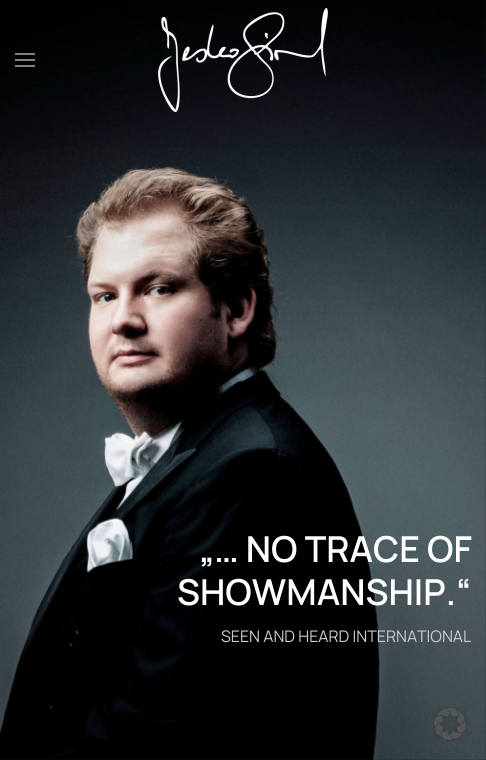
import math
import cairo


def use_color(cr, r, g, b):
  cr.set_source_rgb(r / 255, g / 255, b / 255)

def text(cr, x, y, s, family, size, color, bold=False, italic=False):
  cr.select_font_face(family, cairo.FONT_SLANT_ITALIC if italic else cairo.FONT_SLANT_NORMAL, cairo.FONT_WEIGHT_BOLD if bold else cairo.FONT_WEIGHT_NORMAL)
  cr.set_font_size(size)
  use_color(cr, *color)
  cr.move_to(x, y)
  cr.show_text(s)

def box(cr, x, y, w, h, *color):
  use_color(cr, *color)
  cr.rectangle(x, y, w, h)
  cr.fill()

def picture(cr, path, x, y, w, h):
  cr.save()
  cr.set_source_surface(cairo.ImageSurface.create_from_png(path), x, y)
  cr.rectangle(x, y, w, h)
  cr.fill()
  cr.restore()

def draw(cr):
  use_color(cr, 22, 32, 38)
  cr.paint()
  picture(cr, "img_02.png", 0, 0, 486, 760)
  box(cr, 15, 53, 20, 2, 129, 129, 129)
  box(cr, 15, 59, 20, 2, 129, 129, 129)
  cr.set_source_rgba(1, 1, 1, 0.5)
  cr.rectangle(15, 65, 20, 2)
  cr.fill()
  picture(cr, "img_01.png", 158, 8, 170, 104)
  picture(cr, "img_03.png", 433, 706, 35, 36)
  text(cr, 199, 562, "„… NO TRACE OF", "Manrope ExtraLight", 35.75, (255, 255, 255))
  text(cr, 177, 605, "SHOWMANSHIP.“", "Manrope ExtraLight", 35.75, (255, 255, 255))
  text(cr, 221, 642, "SEEN AND HEARD INTERNATIONAL", "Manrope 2 ExtraLight", 16, (202, 203, 204))


surface = cairo.ImageSurface(cairo.FORMAT_RGB24, 486, 760)
cr = cairo.Context(surface)
options = cairo.FontOptions()
options.set_hint_metrics(cairo.HINT_METRICS_OFF)
options.set_hint_style(cairo.HINT_STYLE_NONE)
cr.set_font_options(options)
cr.set_miter_limit(4)
draw(cr)
surface.write_to_png("out.png")
